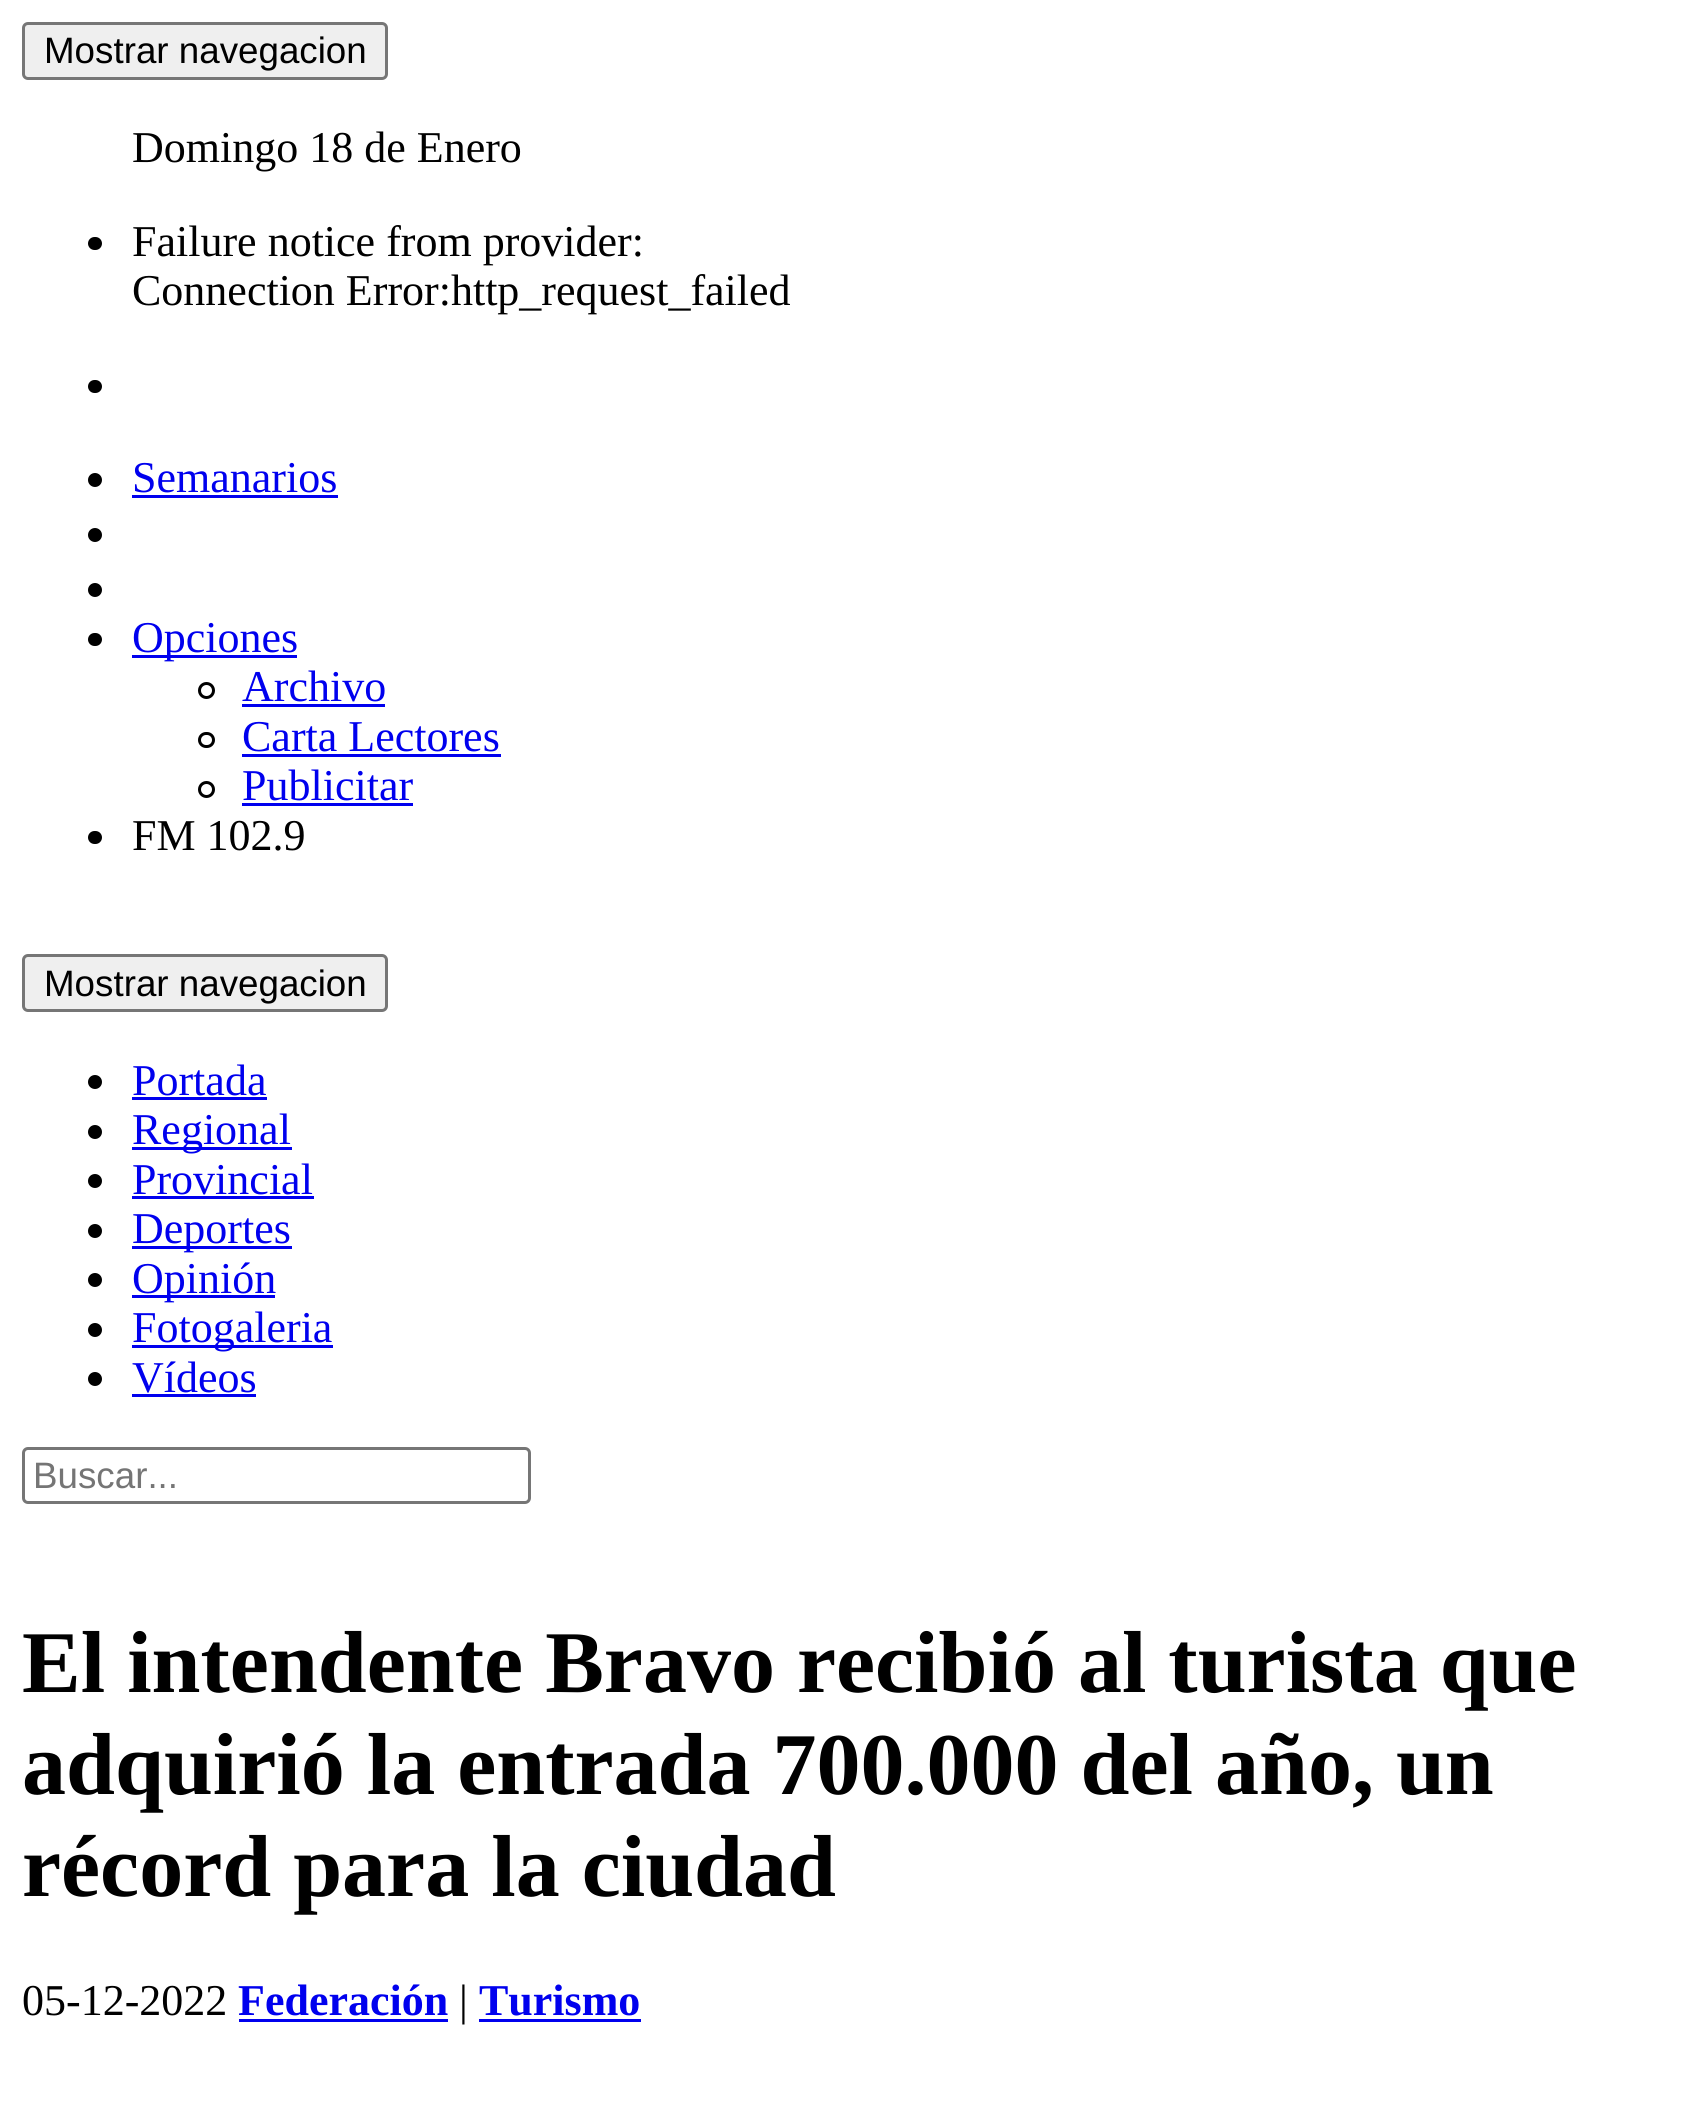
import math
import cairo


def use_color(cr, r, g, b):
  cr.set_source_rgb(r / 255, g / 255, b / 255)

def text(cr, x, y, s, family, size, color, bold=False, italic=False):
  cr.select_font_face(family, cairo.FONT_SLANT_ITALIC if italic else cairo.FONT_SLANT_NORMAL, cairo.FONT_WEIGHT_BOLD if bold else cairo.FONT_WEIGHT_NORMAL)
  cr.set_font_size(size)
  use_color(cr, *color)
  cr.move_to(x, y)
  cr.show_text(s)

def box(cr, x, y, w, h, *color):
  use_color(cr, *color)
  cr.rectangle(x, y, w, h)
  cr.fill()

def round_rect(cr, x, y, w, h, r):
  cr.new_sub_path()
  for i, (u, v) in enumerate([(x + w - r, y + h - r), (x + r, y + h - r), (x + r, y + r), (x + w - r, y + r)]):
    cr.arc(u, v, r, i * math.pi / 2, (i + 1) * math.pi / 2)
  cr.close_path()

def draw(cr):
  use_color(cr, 255, 255, 255)
  cr.paint()
  use_color(cr, 239, 239, 239)
  round_rect(cr, 23.5, 23.5, 363, 55, 4.5)
  cr.fill_preserve()
  use_color(cr, 118, 118, 118)
  cr.set_line_width(3)
  cr.stroke()
  use_color(cr, 0, 0, 0)
  round_rect(cr, 88, 237, 14, 13, 6.5)
  cr.fill()
  round_rect(cr, 88, 380, 14, 13, 6.5)
  cr.fill()
  cr.arc(95, 480, 7, 0, 2 * math.pi)
  cr.fill()
  box(cr, 132, 495, 206, 3, 0, 0, 238)
  use_color(cr, 0, 0, 0)
  cr.arc(95, 535, 7, 0, 2 * math.pi)
  cr.fill()
  cr.arc(95, 590, 7, 0, 2 * math.pi)
  cr.fill()
  round_rect(cr, 88, 633, 14, 13, 6.5)
  cr.fill()
  box(cr, 132, 655, 165, 3, 0, 0, 238)
  cr.arc(206.5, 690.5, 7, 0, 2 * math.pi)
  use_color(cr, 0, 0, 0)
  cr.stroke()
  box(cr, 242, 704, 143, 3, 0, 0, 238)
  round_rect(cr, 199.5, 733.5, 14, 13, 6.5)
  use_color(cr, 0, 0, 0)
  cr.stroke()
  box(cr, 242, 754, 259, 3, 0, 0, 238)
  cr.arc(206.5, 789.5, 7, 0, 2 * math.pi)
  use_color(cr, 0, 0, 0)
  cr.stroke()
  box(cr, 242, 803, 171, 3, 0, 0, 238)
  use_color(cr, 0, 0, 0)
  round_rect(cr, 88, 831, 14, 13, 6.5)
  cr.fill()
  use_color(cr, 239, 239, 239)
  round_rect(cr, 23.5, 955.5, 363, 55, 4.5)
  cr.fill_preserve()
  use_color(cr, 118, 118, 118)
  cr.stroke()
  use_color(cr, 0, 0, 0)
  cr.arc(95, 1082, 7, 0, 2 * math.pi)
  cr.fill()
  box(cr, 132, 1097, 135, 3, 0, 0, 238)
  use_color(cr, 0, 0, 0)
  cr.arc(95, 1132, 7, 0, 2 * math.pi)
  cr.fill()
  box(cr, 132, 1147, 160, 3, 0, 0, 238)
  use_color(cr, 0, 0, 0)
  cr.arc(95, 1181, 7, 0, 2 * math.pi)
  cr.fill()
  box(cr, 132, 1196, 182, 3, 0, 0, 238)
  use_color(cr, 0, 0, 0)
  cr.arc(95, 1231, 7, 0, 2 * math.pi)
  cr.fill()
  box(cr, 132, 1246, 160, 3, 0, 0, 238)
  use_color(cr, 0, 0, 0)
  cr.arc(95, 1280, 7, 0, 2 * math.pi)
  cr.fill()
  box(cr, 132, 1295, 143, 3, 0, 0, 238)
  use_color(cr, 0, 0, 0)
  cr.arc(95, 1330, 7, 0, 2 * math.pi)
  cr.fill()
  box(cr, 132, 1345, 201, 3, 0, 0, 238)
  use_color(cr, 0, 0, 0)
  cr.arc(95, 1379, 7, 0, 2 * math.pi)
  cr.fill()
  box(cr, 132, 1394, 124, 3, 0, 0, 238)
  round_rect(cr, 23.5, 1448.5, 506, 54, 4.5)
  use_color(cr, 118, 118, 118)
  cr.stroke()
  box(cr, 239, 2019, 209, 3, 0, 0, 238)
  box(cr, 479, 2019, 162, 3, 0, 0, 238)
  text(cr, 44, 63, "Mostrar navegacion", "Liberation Sans", 36.75, (0, 0, 0))
  text(cr, 132, 162, "Domingo 18 de Enero", "Liberation Serif", 44, (0, 0, 0))
  text(cr, 132, 256, "Failure notice from provider:", "Liberation Serif", 44, (0, 0, 0))
  text(cr, 132, 305, "Connection Error:http_request_failed", "Liberation Serif", 44, (0, 0, 0))
  text(cr, 132, 492, "Semanarios", "Liberation Serif", 44, (0, 0, 238))
  text(cr, 132, 652, "Opciones", "Liberation Serif", 44, (0, 0, 238))
  text(cr, 242, 701, "Archivo", "Liberation Serif", 44, (0, 0, 238))
  text(cr, 242, 751, "Carta Lectores", "Liberation Serif", 44, (0, 0, 238))
  text(cr, 242, 800, "Publicitar", "Liberation Serif", 44, (0, 0, 238))
  text(cr, 132, 850, "FM 102.9", "Liberation Serif", 44, (0, 0, 0))
  text(cr, 44, 996, "Mostrar navegacion", "Liberation Sans", 36.75, (0, 0, 0))
  text(cr, 132, 1095, "Portada", "Liberation Serif", 44, (0, 0, 238))
  text(cr, 132, 1144, "Regional", "Liberation Serif", 44, (0, 0, 238))
  text(cr, 132, 1194, "Provincial", "Liberation Serif", 44, (0, 0, 238))
  text(cr, 132, 1243, "Deportes", "Liberation Serif", 44, (0, 0, 238))
  text(cr, 132, 1293, "Opinión", "Liberation Serif", 44, (0, 0, 238))
  text(cr, 132, 1342, "Fotogaleria", "Liberation Serif", 44, (0, 0, 238))
  text(cr, 132, 1392, "Vídeos", "Liberation Serif", 44, (0, 0, 238))
  text(cr, 33, 1488, "Buscar...", "Liberation Sans", 36.75, (117, 117, 117))
  text(cr, 22, 1692, "El intendente Bravo recibió al turista que", "Liberation Serif", 88, (0, 0, 0), bold=True)
  text(cr, 22, 1794, "adquirió la entrada 700.000 del año, un", "Liberation Serif", 88, (0, 0, 0), bold=True)
  text(cr, 22, 1896, "récord para la ciudad", "Liberation Serif", 88, (0, 0, 0), bold=True)
  text(cr, 22, 2015, "05-12-2022", "Liberation Serif", 44, (0, 0, 0))
  text(cr, 238, 2015, "Federación", "Liberation Serif", 44, (0, 0, 238), bold=True)
  text(cr, 459, 2015, "|", "Liberation Serif", 44, (0, 0, 0))
  text(cr, 479, 2015, "Turismo", "Liberation Serif", 44, (0, 0, 238), bold=True)


surface = cairo.ImageSurface(cairo.FORMAT_RGB24, 1699, 2109)
cr = cairo.Context(surface)
options = cairo.FontOptions()
options.set_hint_metrics(cairo.HINT_METRICS_OFF)
options.set_hint_style(cairo.HINT_STYLE_NONE)
cr.set_font_options(options)
cr.set_miter_limit(4)
draw(cr)
surface.write_to_png("out.png")
